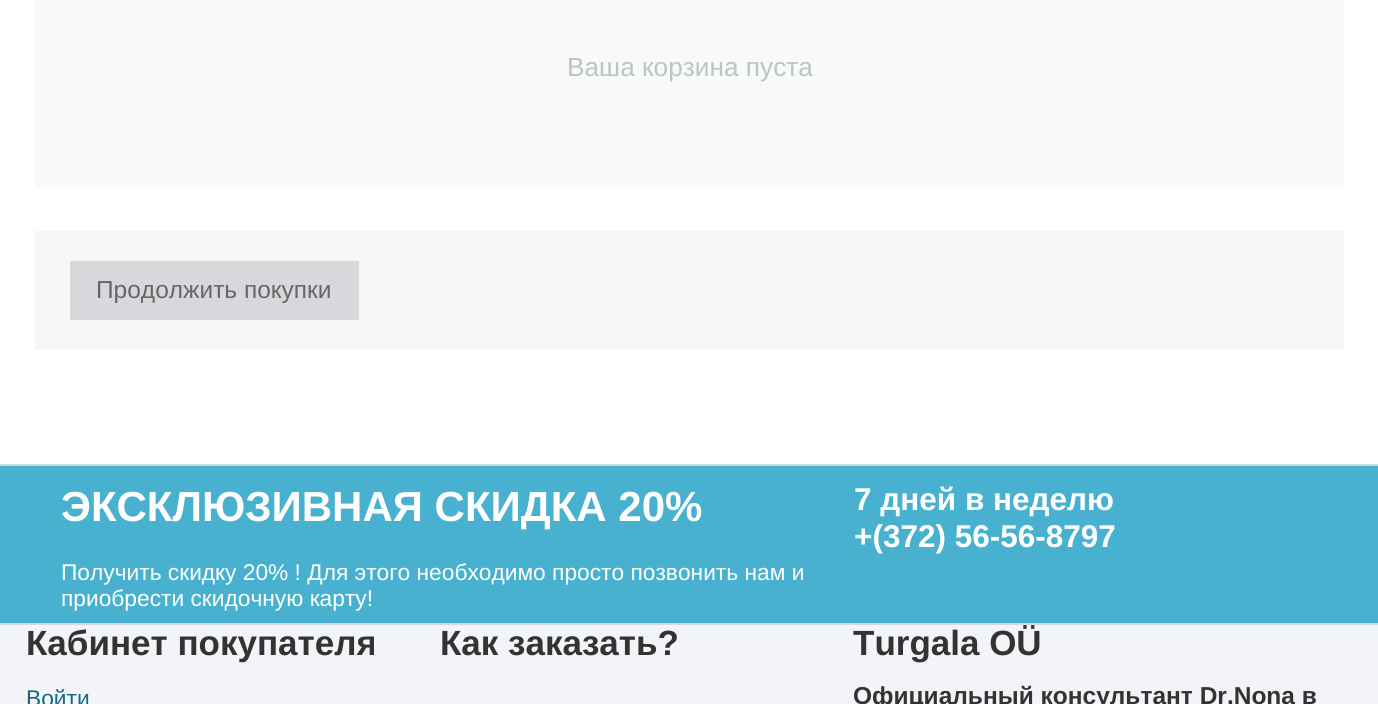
import math
import cairo


def use_color(cr, r, g, b):
  cr.set_source_rgb(r / 255, g / 255, b / 255)

def text(cr, x, y, s, family, size, color, bold=False, italic=False):
  cr.select_font_face(family, cairo.FONT_SLANT_ITALIC if italic else cairo.FONT_SLANT_NORMAL, cairo.FONT_WEIGHT_BOLD if bold else cairo.FONT_WEIGHT_NORMAL)
  cr.set_font_size(size)
  use_color(cr, *color)
  cr.move_to(x, y)
  cr.show_text(s)

def box(cr, x, y, w, h, *color):
  use_color(cr, *color)
  cr.rectangle(x, y, w, h)
  cr.fill()

def draw(cr):
  use_color(cr, 255, 255, 255)
  cr.paint()
  box(cr, 35, 0, 1309, 187, 248, 249, 249)
  box(cr, 35, 231, 1309, 119, 246, 246, 246)
  box(cr, 70, 261, 289, 59, 215, 216, 219)
  box(cr, 0, 625, 1378, 79, 242, 244, 248)
  box(cr, 0, 466, 1378, 157, 72, 177, 207)
  box(cr, 0, 464, 1378, 2, 209, 216, 230)
  box(cr, 0, 623, 1378, 2, 209, 216, 230)
  text(cr, 567, 76, "Ваша корзина пуста", "Liberation Sans", 26.25, (189, 195, 199))
  text(cr, 96, 298, "Продолжить покупки", "Liberation Sans", 24.5, (102, 102, 102))
  text(cr, 61, 521, "ЭКСКЛЮЗИВНАЯ СКИДКА 20%", "Liberation Sans", 42, (255, 255, 255), bold=True)
  text(cr, 61, 580, "Получить скидку 20% ! Для этого необходимо просто позвонить нам и", "Liberation Sans", 22.75, (255, 255, 255))
  text(cr, 61, 606, "приобрести скидочную карту!", "Liberation Sans", 22.75, (255, 255, 255))
  text(cr, 854, 510, "7 дней в неделю", "Liberation Sans", 31.5, (255, 255, 255), bold=True)
  text(cr, 854, 547, "+(372) 56-56-8797", "Liberation Sans", 31.5, (255, 255, 255), bold=True)
  text(cr, 26, 655, "Кабинет покупателя", "Liberation Sans", 35, (51, 51, 51), bold=True)
  text(cr, 26, 706, "Войти", "Liberation Sans", 22.75, (20, 107, 131))
  text(cr, 440, 655, "Как заказать?", "Liberation Sans", 35, (51, 51, 51), bold=True)
  text(cr, 853, 655, "Turgala OÜ", "Liberation Sans", 35, (51, 51, 51), bold=True)
  text(cr, 853, 704, "Официальный консультант Dr.Nona в", "Liberation Sans", 24.5, (51, 51, 51), bold=True)


surface = cairo.ImageSurface(cairo.FORMAT_RGB24, 1378, 704)
cr = cairo.Context(surface)
options = cairo.FontOptions()
options.set_hint_metrics(cairo.HINT_METRICS_OFF)
options.set_hint_style(cairo.HINT_STYLE_NONE)
cr.set_font_options(options)
cr.set_miter_limit(4)
draw(cr)
surface.write_to_png("out.png")
